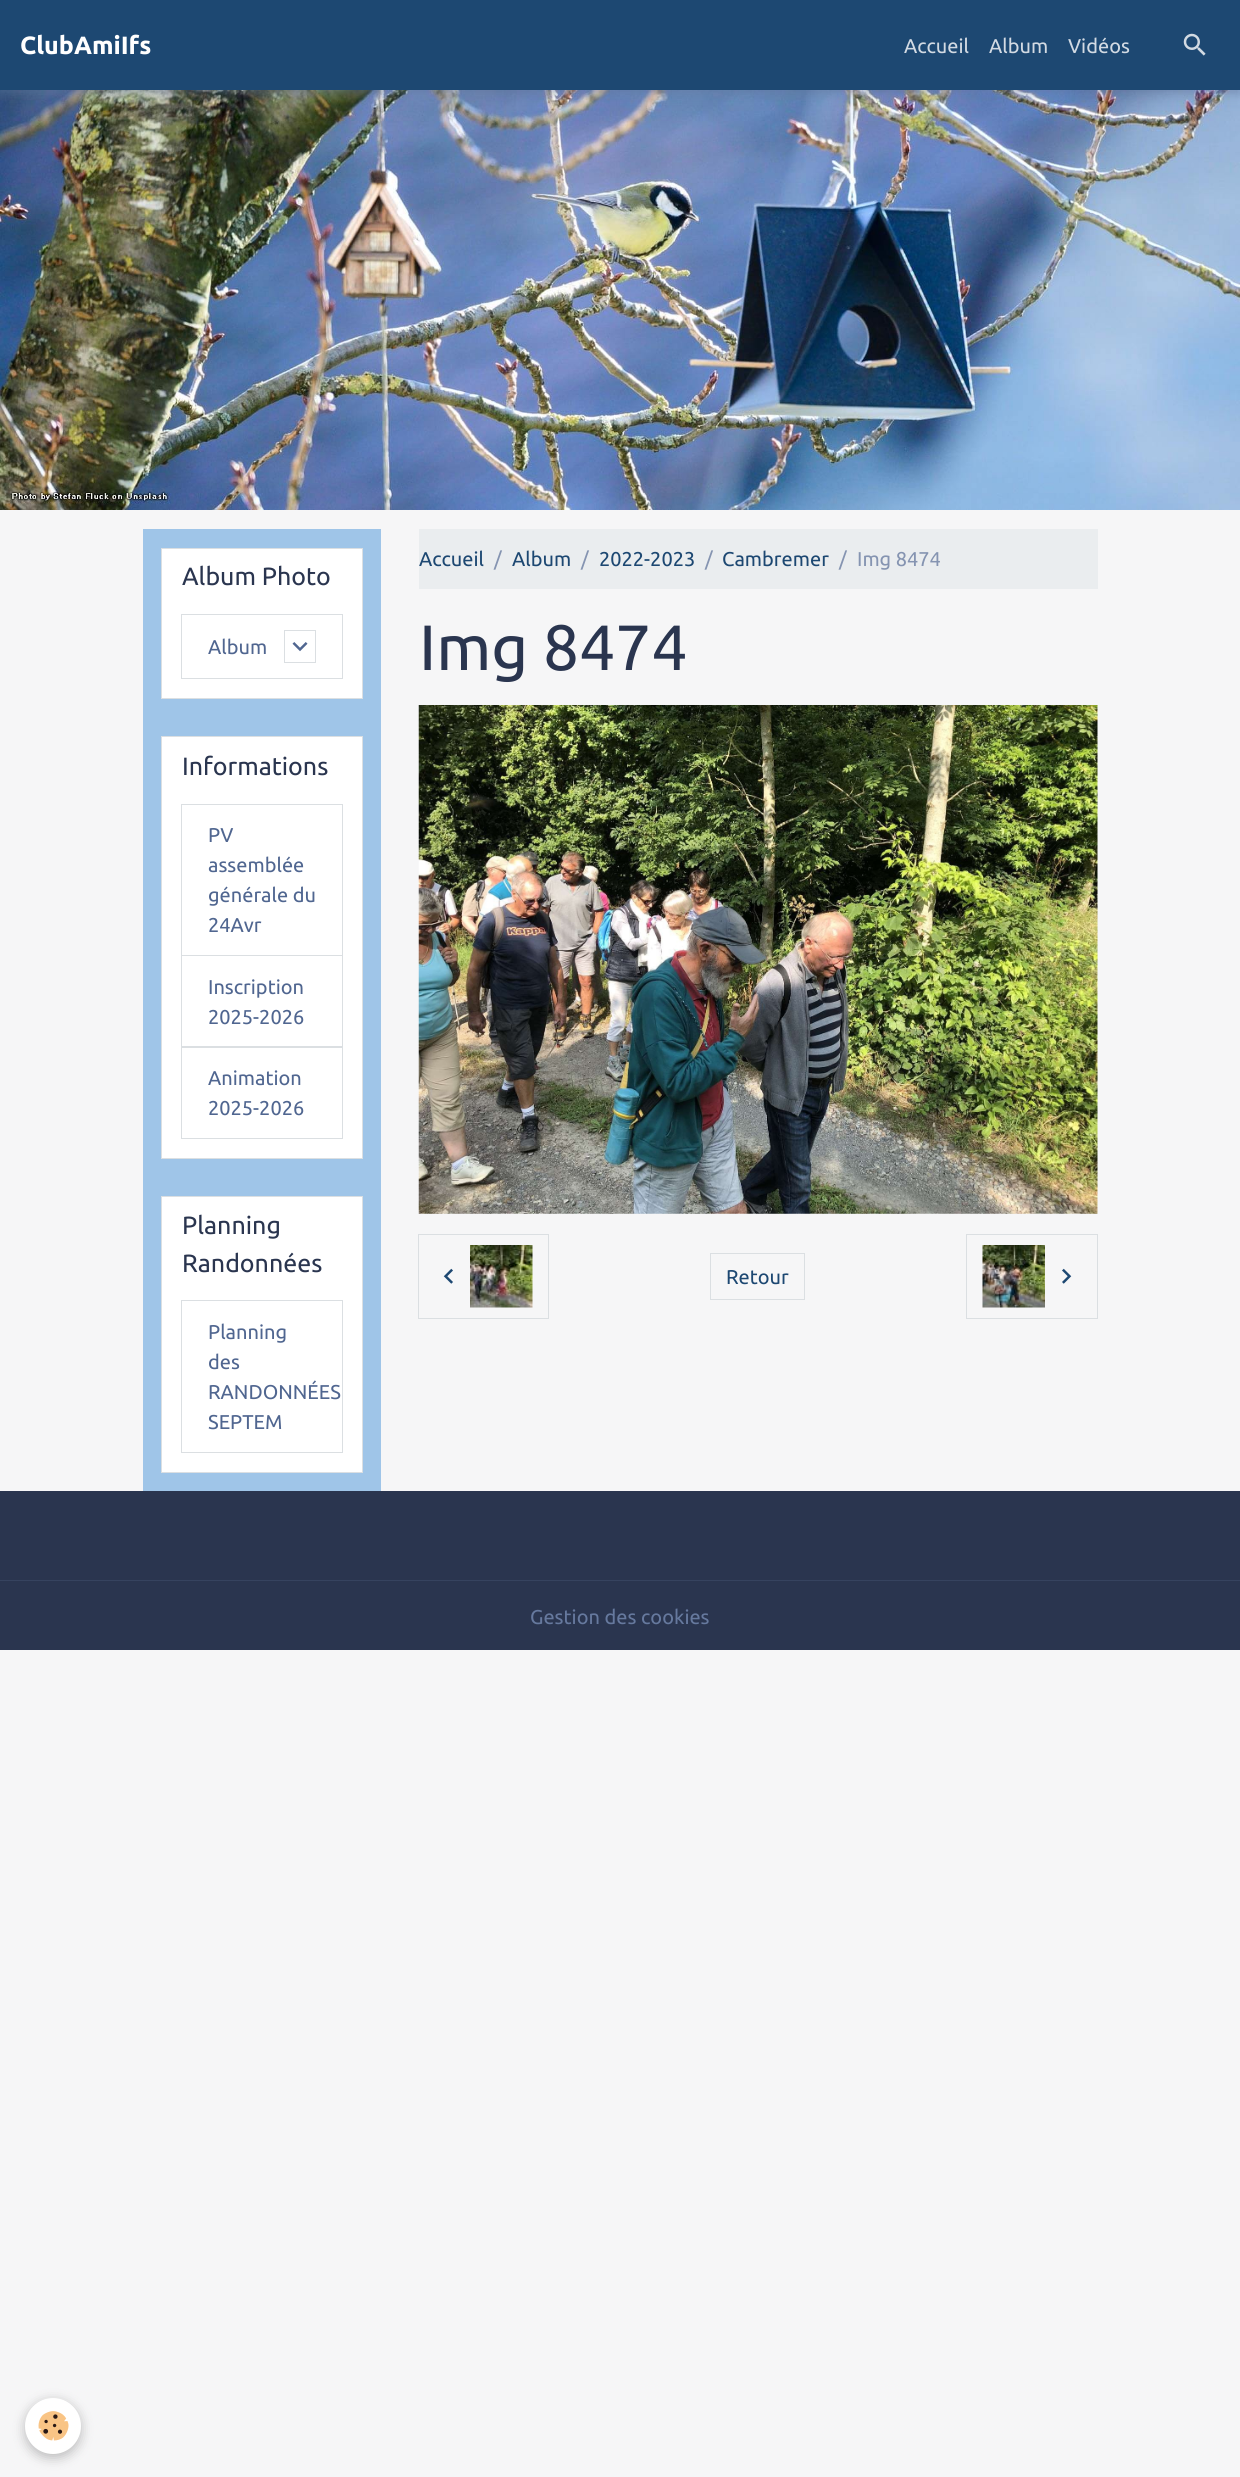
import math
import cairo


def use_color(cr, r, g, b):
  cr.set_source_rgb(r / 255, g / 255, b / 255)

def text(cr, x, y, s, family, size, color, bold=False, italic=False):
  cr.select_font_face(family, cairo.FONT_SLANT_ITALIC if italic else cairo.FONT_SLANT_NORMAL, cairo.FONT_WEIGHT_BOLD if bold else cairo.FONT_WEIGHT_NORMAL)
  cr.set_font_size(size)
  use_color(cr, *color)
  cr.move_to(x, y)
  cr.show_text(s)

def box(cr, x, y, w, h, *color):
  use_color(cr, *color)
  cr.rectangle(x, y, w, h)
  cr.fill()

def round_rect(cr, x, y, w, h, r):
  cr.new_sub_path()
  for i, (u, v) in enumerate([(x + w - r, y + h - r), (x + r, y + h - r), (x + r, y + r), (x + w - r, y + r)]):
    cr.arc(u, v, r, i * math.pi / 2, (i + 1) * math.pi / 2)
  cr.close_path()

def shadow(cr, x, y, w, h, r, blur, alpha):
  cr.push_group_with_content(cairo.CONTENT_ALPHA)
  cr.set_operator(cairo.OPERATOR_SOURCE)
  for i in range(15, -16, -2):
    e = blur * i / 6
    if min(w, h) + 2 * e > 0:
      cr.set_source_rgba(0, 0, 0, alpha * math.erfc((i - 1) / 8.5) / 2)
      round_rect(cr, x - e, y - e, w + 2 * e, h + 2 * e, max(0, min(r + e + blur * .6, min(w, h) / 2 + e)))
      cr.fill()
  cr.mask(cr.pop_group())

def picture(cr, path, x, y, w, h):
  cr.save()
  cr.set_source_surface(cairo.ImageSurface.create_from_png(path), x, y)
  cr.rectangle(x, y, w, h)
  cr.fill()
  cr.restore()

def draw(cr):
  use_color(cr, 246, 246, 247)
  cr.paint()
  picture(cr, "img_02.png", 0, 90, 1240, 420)
  use_color(cr, 98, 117, 155)
  shadow(cr, 0, 4, 1240, 90, 0, 5, 0.5)
  box(cr, 0, 0, 1240, 90, 29, 72, 114)
  picture(cr, "img_01.png", 1183, 33, 23, 23)
  box(cr, 143, 529, 238, 962, 159, 197, 232)
  use_color(cr, 255, 255, 255)
  cr.rectangle(161.5, 548.5, 201, 150)
  cr.fill_preserve()
  use_color(cr, 219, 223, 226)
  cr.set_line_width(1)
  cr.stroke()
  cr.rectangle(181.5, 614.5, 161, 64)
  cr.stroke()
  cr.rectangle(284.5, 630.5, 31, 32)
  cr.stroke()
  picture(cr, "img_03.png", 292, 642, 16, 10)
  use_color(cr, 255, 255, 255)
  cr.rectangle(161.5, 736.5, 201, 422)
  cr.fill_preserve()
  use_color(cr, 219, 223, 226)
  cr.stroke()
  cr.rectangle(181.5, 804.5, 161, 151)
  cr.stroke()
  cr.rectangle(181.5, 955.5, 161, 92)
  cr.stroke()
  cr.rectangle(181.5, 1046.5, 161, 92)
  cr.stroke()
  use_color(cr, 255, 255, 255)
  cr.rectangle(161.5, 1196.5, 201, 276)
  cr.fill_preserve()
  use_color(cr, 219, 223, 226)
  cr.stroke()
  cr.rectangle(181.5, 1300.5, 161, 152)
  cr.stroke()
  box(cr, 419, 529, 679, 60, 234, 237, 239)
  picture(cr, "img_04.png", 418, 705, 680, 509)
  cr.rectangle(418.5, 1234.5, 130, 84)
  use_color(cr, 219, 223, 226)
  cr.stroke()
  picture(cr, "img_05.png", 443, 1268, 10, 16)
  picture(cr, "img_06.png", 470, 1245, 63, 63)
  cr.rectangle(710.5, 1253.5, 94, 46)
  cr.stroke()
  cr.rectangle(966.5, 1234.5, 131, 84)
  cr.stroke()
  picture(cr, "img_07.png", 982, 1245, 63, 63)
  picture(cr, "img_08.png", 1062, 1268, 10, 16)
  box(cr, 0, 1491, 1240, 159, 42, 53, 79)
  box(cr, 0, 1580, 1240, 1, 54, 67, 95)
  use_color(cr, 0, 0, 0)
  shadow(cr, 25, 2401, 56, 57, 28, 6, 0.24)
  use_color(cr, 255, 255, 255)
  cr.arc(53, 2426, 28, 0, 2 * math.pi)
  cr.fill()
  picture(cr, "img_09.png", 38, 2411, 31, 30)
  text(cr, 20, 54, "ClubAmiIfs", "Ubuntu", 25, (255, 255, 255), bold=True)
  text(cr, 904, 53, "Accueil", "Ubuntu", 20, (210, 218, 227))
  text(cr, 989, 53, "Album", "Ubuntu", 20, (210, 218, 227))
  text(cr, 1068, 53, "Vidéos", "Ubuntu", 20, (210, 218, 227))
  text(cr, 182, 585, "Album Photo", "Ubuntu", 25, (42, 53, 79))
  text(cr, 208, 654, "Album", "Ubuntu", 20, (80, 102, 144))
  text(cr, 182, 775, "Informations", "Ubuntu", 25, (42, 53, 79))
  text(cr, 208, 842, "PV", "Ubuntu", 20, (80, 102, 144))
  text(cr, 208, 872, "assemblée", "Ubuntu", 20, (80, 102, 144))
  text(cr, 208, 902, "générale du", "Ubuntu", 20, (80, 102, 144))
  text(cr, 208, 932, "24Avr", "Ubuntu", 20, (80, 102, 144))
  text(cr, 208, 994, "Inscription", "Ubuntu", 20, (80, 102, 144))
  text(cr, 208, 1024, "2025-2026", "Ubuntu", 20, (80, 102, 144))
  text(cr, 208, 1085, "Animation", "Ubuntu", 20, (80, 102, 144))
  text(cr, 208, 1115, "2025-2026", "Ubuntu", 20, (80, 102, 144))
  text(cr, 182, 1234, "Planning", "Ubuntu", 25, (42, 53, 79))
  text(cr, 182, 1272, "Randonnées", "Ubuntu", 25, (42, 53, 79))
  text(cr, 208, 1339, "Planning", "Ubuntu", 20, (80, 102, 144))
  text(cr, 208, 1369, "des", "Ubuntu", 20, (80, 102, 144))
  text(cr, 208, 1399, "RANDONNÉES", "Ubuntu", 20, (80, 102, 144))
  text(cr, 208, 1429, "SEPTEM", "Ubuntu", 20, (80, 102, 144))
  text(cr, 419, 566, "Accueil", "Ubuntu", 20, (29, 72, 114))
  text(cr, 494, 566, "/", "Ubuntu", 20, (133, 148, 177))
  text(cr, 512, 566, "Album", "Ubuntu", 20, (29, 72, 114))
  text(cr, 581, 566, "/", "Ubuntu", 20, (133, 148, 177))
  text(cr, 599, 566, "2022-2023", "Ubuntu", 20, (29, 72, 114))
  text(cr, 705, 566, "/", "Ubuntu", 20, (133, 148, 177))
  text(cr, 722, 566, "Cambremer", "Ubuntu", 20, (29, 72, 114))
  text(cr, 839, 566, "/", "Ubuntu", 20, (133, 148, 177))
  text(cr, 857, 566, "Img 8474", "Ubuntu", 20, (133, 148, 177))
  text(cr, 419, 670, "Img 8474", "Ubuntu", 64, (42, 53, 79))
  text(cr, 726, 1284, "Retour", "Ubuntu", 20, (29, 72, 114))
  text(cr, 530, 1624, "Gestion des cookies", "Ubuntu", 20, (102, 121, 158))


surface = cairo.ImageSurface(cairo.FORMAT_RGB24, 1240, 2477)
cr = cairo.Context(surface)
options = cairo.FontOptions()
options.set_hint_metrics(cairo.HINT_METRICS_OFF)
options.set_hint_style(cairo.HINT_STYLE_NONE)
cr.set_font_options(options)
cr.set_miter_limit(4)
draw(cr)
surface.write_to_png("out.png")
